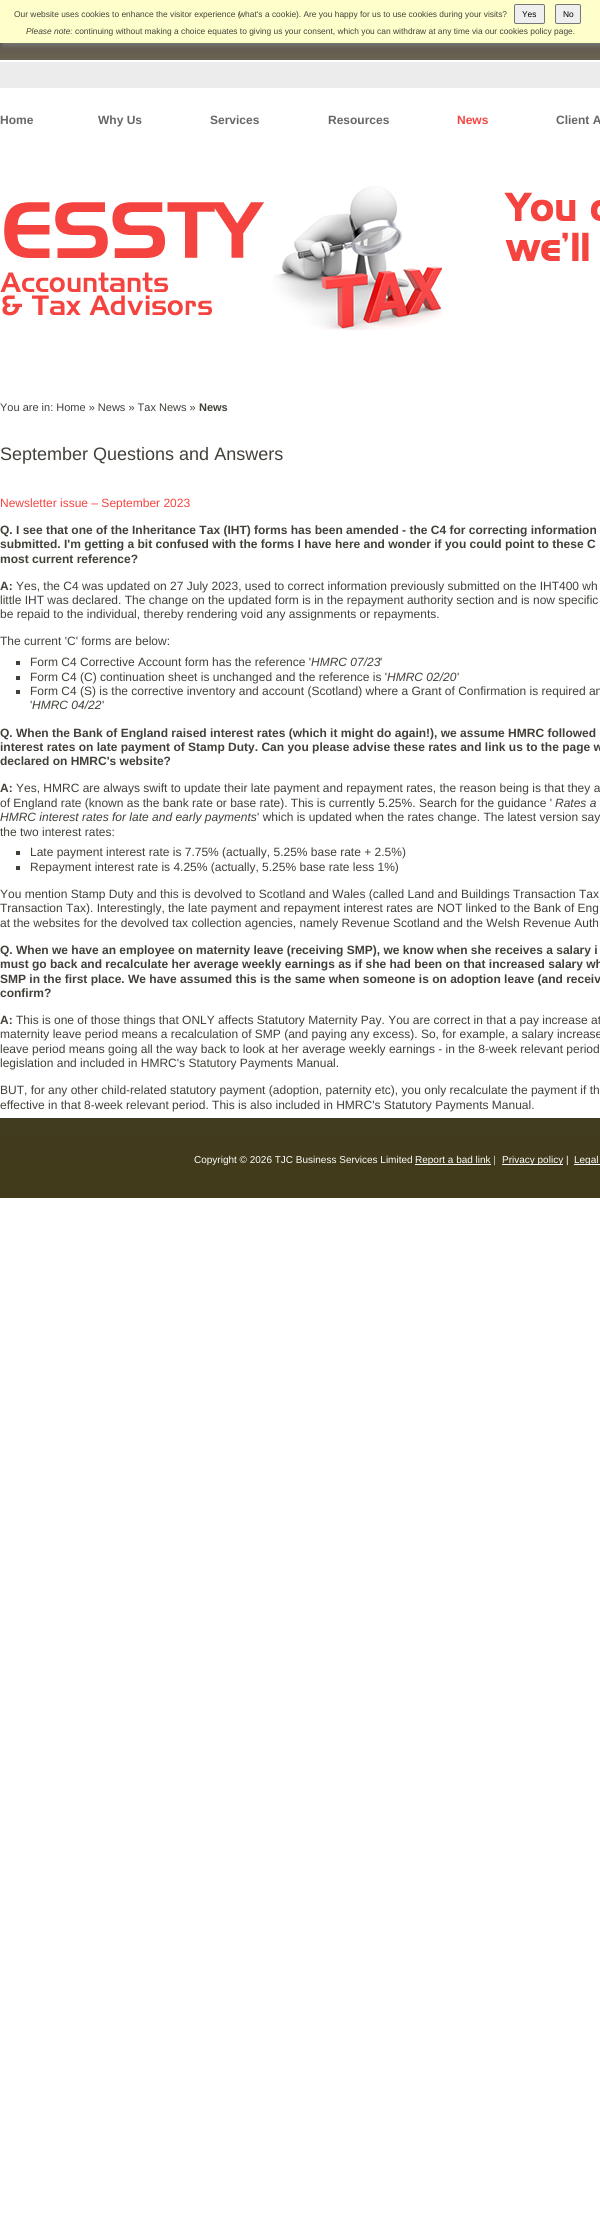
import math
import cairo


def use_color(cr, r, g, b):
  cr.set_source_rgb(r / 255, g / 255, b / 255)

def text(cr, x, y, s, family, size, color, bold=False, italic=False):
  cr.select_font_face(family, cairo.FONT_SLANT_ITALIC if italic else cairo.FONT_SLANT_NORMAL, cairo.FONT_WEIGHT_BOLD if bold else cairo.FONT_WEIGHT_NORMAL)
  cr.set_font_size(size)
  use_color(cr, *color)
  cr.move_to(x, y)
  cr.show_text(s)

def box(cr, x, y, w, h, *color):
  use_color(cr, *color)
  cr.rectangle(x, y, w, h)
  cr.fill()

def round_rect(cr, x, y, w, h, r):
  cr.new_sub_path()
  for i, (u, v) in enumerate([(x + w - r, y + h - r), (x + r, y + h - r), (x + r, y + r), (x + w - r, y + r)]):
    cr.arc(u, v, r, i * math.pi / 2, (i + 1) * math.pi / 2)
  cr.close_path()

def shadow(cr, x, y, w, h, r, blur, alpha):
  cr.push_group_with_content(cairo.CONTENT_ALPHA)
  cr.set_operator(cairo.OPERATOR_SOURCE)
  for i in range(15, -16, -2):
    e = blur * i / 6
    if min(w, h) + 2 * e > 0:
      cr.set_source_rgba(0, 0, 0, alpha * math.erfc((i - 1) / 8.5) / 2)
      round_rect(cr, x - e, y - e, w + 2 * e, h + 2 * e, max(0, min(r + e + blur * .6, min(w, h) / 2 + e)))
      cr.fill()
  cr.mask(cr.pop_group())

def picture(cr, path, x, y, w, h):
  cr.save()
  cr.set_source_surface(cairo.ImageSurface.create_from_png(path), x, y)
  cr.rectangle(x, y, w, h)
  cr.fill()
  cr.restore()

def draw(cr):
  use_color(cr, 255, 255, 255)
  cr.paint()
  picture(cr, "img_01.png", 0, 43, 600, 45)
  use_color(cr, 119, 119, 119)
  shadow(cr, 3, 3, 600, 43, 0, 2.5, 1)
  box(cr, 0, 0, 600, 43, 255, 255, 204)
  use_color(cr, 239, 239, 239)
  round_rect(cr, 514.5, 4.5, 30, 19, 1.5)
  cr.fill_preserve()
  use_color(cr, 118, 118, 118)
  cr.set_line_width(1)
  cr.stroke()
  use_color(cr, 239, 239, 239)
  round_rect(cr, 555.5, 4.5, 25, 19, 1.5)
  cr.fill_preserve()
  use_color(cr, 118, 118, 118)
  cr.stroke()
  picture(cr, "img_02.png", 0, 186, 442, 144)
  picture(cr, "img_03.png", 504, 192, 96, 69)
  box(cr, 16, 661, 4, 4, 67, 64, 58)
  box(cr, 16, 676, 4, 4, 67, 64, 58)
  box(cr, 16, 690, 4, 4, 67, 64, 58)
  box(cr, 16, 851, 4, 4, 67, 64, 58)
  box(cr, 16, 866, 4, 4, 67, 64, 58)
  picture(cr, "img_04.png", 0, 1118, 600, 80)
  box(cr, 415, 1164, 76, 1, 255, 255, 255)
  box(cr, 502, 1164, 61, 1, 255, 255, 255)
  box(cr, 574, 1164, 26, 1, 255, 255, 255)
  text(cr, 14, 17, "Our website uses cookies to enhance the visitor experience (", "Liberation Sans", 8.4, (67, 64, 58))
  text(cr, 296, 17, "). Are you happy for us to use cookies during your visits?", "Liberation Sans", 8.4, (67, 64, 58))
  text(cr, 239, 17, "what's a cookie", "Liberation Sans", 8.4, (67, 64, 58))
  text(cr, 522, 17, "Yes", "Liberation Sans", 8.4, (0, 0, 0))
  text(cr, 563, 17, "No", "Liberation Sans", 8.4, (0, 0, 0))
  text(cr, 26, 34, "Please note:", "Liberation Sans", 8.4, (67, 64, 58), italic=True)
  text(cr, 75, 34, "continuing without making a choice equates to giving us your consent, which you can withdraw at any time via our cookies policy page.", "Liberation Sans", 8.4, (67, 64, 58))
  text(cr, 0, 124, "Home", "Liberation Sans", 12, (102, 102, 102), bold=True)
  text(cr, 98, 124, "Why Us", "Liberation Sans", 12, (102, 102, 102), bold=True)
  text(cr, 210, 124, "Services", "Liberation Sans", 12, (102, 102, 102), bold=True)
  text(cr, 328, 124, "Resources", "Liberation Sans", 12, (102, 102, 102), bold=True)
  text(cr, 457, 124, "News", "Liberation Sans", 12, (245, 67, 64), bold=True)
  text(cr, 556, 124, "Client A", "Liberation Sans", 12, (102, 102, 102), bold=True)
  text(cr, 0, 411, "You are in: Home » News » Tax News »", "Liberation Sans", 11, (67, 64, 58))
  text(cr, 199, 411, "News", "Liberation Sans", 11, (67, 64, 58), bold=True)
  text(cr, 0, 460, "September Questions and Answers", "Liberation Sans", 18, (67, 64, 58))
  text(cr, 0, 507, "Newsletter issue – September 2023", "Liberation Sans", 12, (245, 67, 64))
  text(cr, 0, 534, "Q. I see that one of the Inheritance Tax (IHT) forms has been amended - the C4 for correcting information", "Liberation Sans", 12, (67, 64, 58), bold=True)
  text(cr, 0, 548, "submitted. I'm getting a bit confused with the forms I have here and wonder if you could point to these C", "Liberation Sans", 12, (67, 64, 58), bold=True)
  text(cr, 0, 563, "most current reference?", "Liberation Sans", 12, (67, 64, 58), bold=True)
  text(cr, 0, 590, "A:", "Liberation Sans", 12, (67, 64, 58), bold=True)
  text(cr, 16, 590, "Yes, the C4 was updated on 27 July 2023, used to correct information previously submitted on the IHT400 wh", "Liberation Sans", 12, (67, 64, 58))
  text(cr, 0, 604, "little IHT was declared. The change on the updated form is in the repayment authority section and is now specific", "Liberation Sans", 12, (67, 64, 58))
  text(cr, 0, 618, "be repaid to the individual, thereby rendering void any assignments or repayments.", "Liberation Sans", 12, (67, 64, 58))
  text(cr, 0, 645, "The current 'C' forms are below:", "Liberation Sans", 12, (67, 64, 58))
  text(cr, 30, 666, "Form C4 Corrective Account form has the reference '", "Liberation Sans", 12, (67, 64, 58))
  text(cr, 311, 666, "HMRC 07/23", "Liberation Sans", 12, (67, 64, 58), italic=True)
  text(cr, 380, 666, "'", "Liberation Sans", 12, (67, 64, 58))
  text(cr, 30, 681, "Form C4 (C) continuation sheet is unchanged and the reference is '", "Liberation Sans", 12, (67, 64, 58))
  text(cr, 387, 681, "HMRC 02/20", "Liberation Sans", 12, (67, 64, 58), italic=True)
  text(cr, 457, 681, "'", "Liberation Sans", 12, (67, 64, 58))
  text(cr, 30, 695, "Form C4 (S) is the corrective inventory and account (Scotland) where a Grant of Confirmation is required an", "Liberation Sans", 12, (67, 64, 58))
  text(cr, 30, 709, "'", "Liberation Sans", 12, (67, 64, 58))
  text(cr, 32, 709, "HMRC 04/22", "Liberation Sans", 12, (67, 64, 58), italic=True)
  text(cr, 102, 709, "'", "Liberation Sans", 12, (67, 64, 58))
  text(cr, 0, 737, "Q. When the Bank of England raised interest rates (which it might do again!), we assume HMRC followed", "Liberation Sans", 12, (67, 64, 58), bold=True)
  text(cr, 0, 751, "interest rates on late payment of Stamp Duty. Can you please advise these rates and link us to the page w", "Liberation Sans", 12, (67, 64, 58), bold=True)
  text(cr, 0, 765, "declared on HMRC's website?", "Liberation Sans", 12, (67, 64, 58), bold=True)
  text(cr, 0, 792, "A:", "Liberation Sans", 12, (67, 64, 58), bold=True)
  text(cr, 16, 792, "Yes, HMRC are always swift to update their late payment and repayment rates, the reason being is that they a", "Liberation Sans", 12, (67, 64, 58))
  text(cr, 0, 807, "of England rate (known as the bank rate or base rate). This is currently 5.25%. Search for the guidance '", "Liberation Sans", 12, (67, 64, 58))
  text(cr, 555, 807, "Rates a", "Liberation Sans", 12, (67, 64, 58), italic=True)
  text(cr, 0, 821, "HMRC interest rates for late and early payments", "Liberation Sans", 12, (67, 64, 58), italic=True)
  text(cr, 257, 821, "' which is updated when the rates change. The latest version say", "Liberation Sans", 12, (67, 64, 58))
  text(cr, 0, 836, "the two interest rates:", "Liberation Sans", 12, (67, 64, 58))
  text(cr, 30, 856, "Late payment interest rate is 7.75% (actually, 5.25% base rate + 2.5%)", "Liberation Sans", 12, (67, 64, 58))
  text(cr, 30, 871, "Repayment interest rate is 4.25% (actually, 5.25% base rate less 1%)", "Liberation Sans", 12, (67, 64, 58))
  text(cr, 0, 898, "You mention Stamp Duty and this is devolved to Scotland and Wales (called Land and Buildings Transaction Tax", "Liberation Sans", 12, (67, 64, 58))
  text(cr, 0, 912, "Transaction Tax). Interestingly, the late payment and repayment interest rates are NOT linked to the Bank of Eng", "Liberation Sans", 12, (67, 64, 58))
  text(cr, 0, 927, "at the websites for the devolved tax collection agencies, namely Revenue Scotland and the Welsh Revenue Auth", "Liberation Sans", 12, (67, 64, 58))
  text(cr, 0, 954, "Q. When we have an employee on maternity leave (receiving SMP), we know when she receives a salary i", "Liberation Sans", 12, (67, 64, 58), bold=True)
  text(cr, 0, 968, "must go back and recalculate her average weekly earnings as if she had been on that increased salary wh", "Liberation Sans", 12, (67, 64, 58), bold=True)
  text(cr, 0, 983, "SMP in the first place. We have assumed this is the same when someone is on adoption leave (and receiv", "Liberation Sans", 12, (67, 64, 58), bold=True)
  text(cr, 0, 997, "confirm?", "Liberation Sans", 12, (67, 64, 58), bold=True)
  text(cr, 0, 1024, "A:", "Liberation Sans", 12, (67, 64, 58), bold=True)
  text(cr, 16, 1024, "This is one of those things that ONLY affects Statutory Maternity Pay. You are correct in that a pay increase at", "Liberation Sans", 12, (67, 64, 58))
  text(cr, 0, 1038, "maternity leave period means a recalculation of SMP (and paying any excess). So, for example, a salary increase", "Liberation Sans", 12, (67, 64, 58))
  text(cr, 0, 1053, "leave period means going all the way back to look at her average weekly earnings - in the 8-week relevant period", "Liberation Sans", 12, (67, 64, 58))
  text(cr, 0, 1067, "legislation and included in HMRC's Statutory Payments Manual.", "Liberation Sans", 12, (67, 64, 58))
  text(cr, 0, 1094, "BUT, for any other child-related statutory payment (adoption, paternity etc), you only recalculate the payment if th", "Liberation Sans", 12, (67, 64, 58))
  text(cr, 0, 1109, "effective in that 8-week relevant period. This is also included in HMRC's Statutory Payments Manual.", "Liberation Sans", 12, (67, 64, 58))
  text(cr, 194, 1163, "Copyright © 2026 TJC Business Services Limited", "Liberation Sans", 10, (255, 255, 255))
  text(cr, 415, 1163, "Report a bad link |", "Liberation Sans", 10, (255, 255, 255))
  text(cr, 502, 1163, "Privacy policy |", "Liberation Sans", 10, (255, 255, 255))
  text(cr, 574, 1163, "Legal", "Liberation Sans", 10, (255, 255, 255))


surface = cairo.ImageSurface(cairo.FORMAT_RGB24, 600, 2240)
cr = cairo.Context(surface)
options = cairo.FontOptions()
options.set_hint_metrics(cairo.HINT_METRICS_OFF)
options.set_hint_style(cairo.HINT_STYLE_NONE)
cr.set_font_options(options)
cr.set_miter_limit(4)
draw(cr)
surface.write_to_png("out.png")
